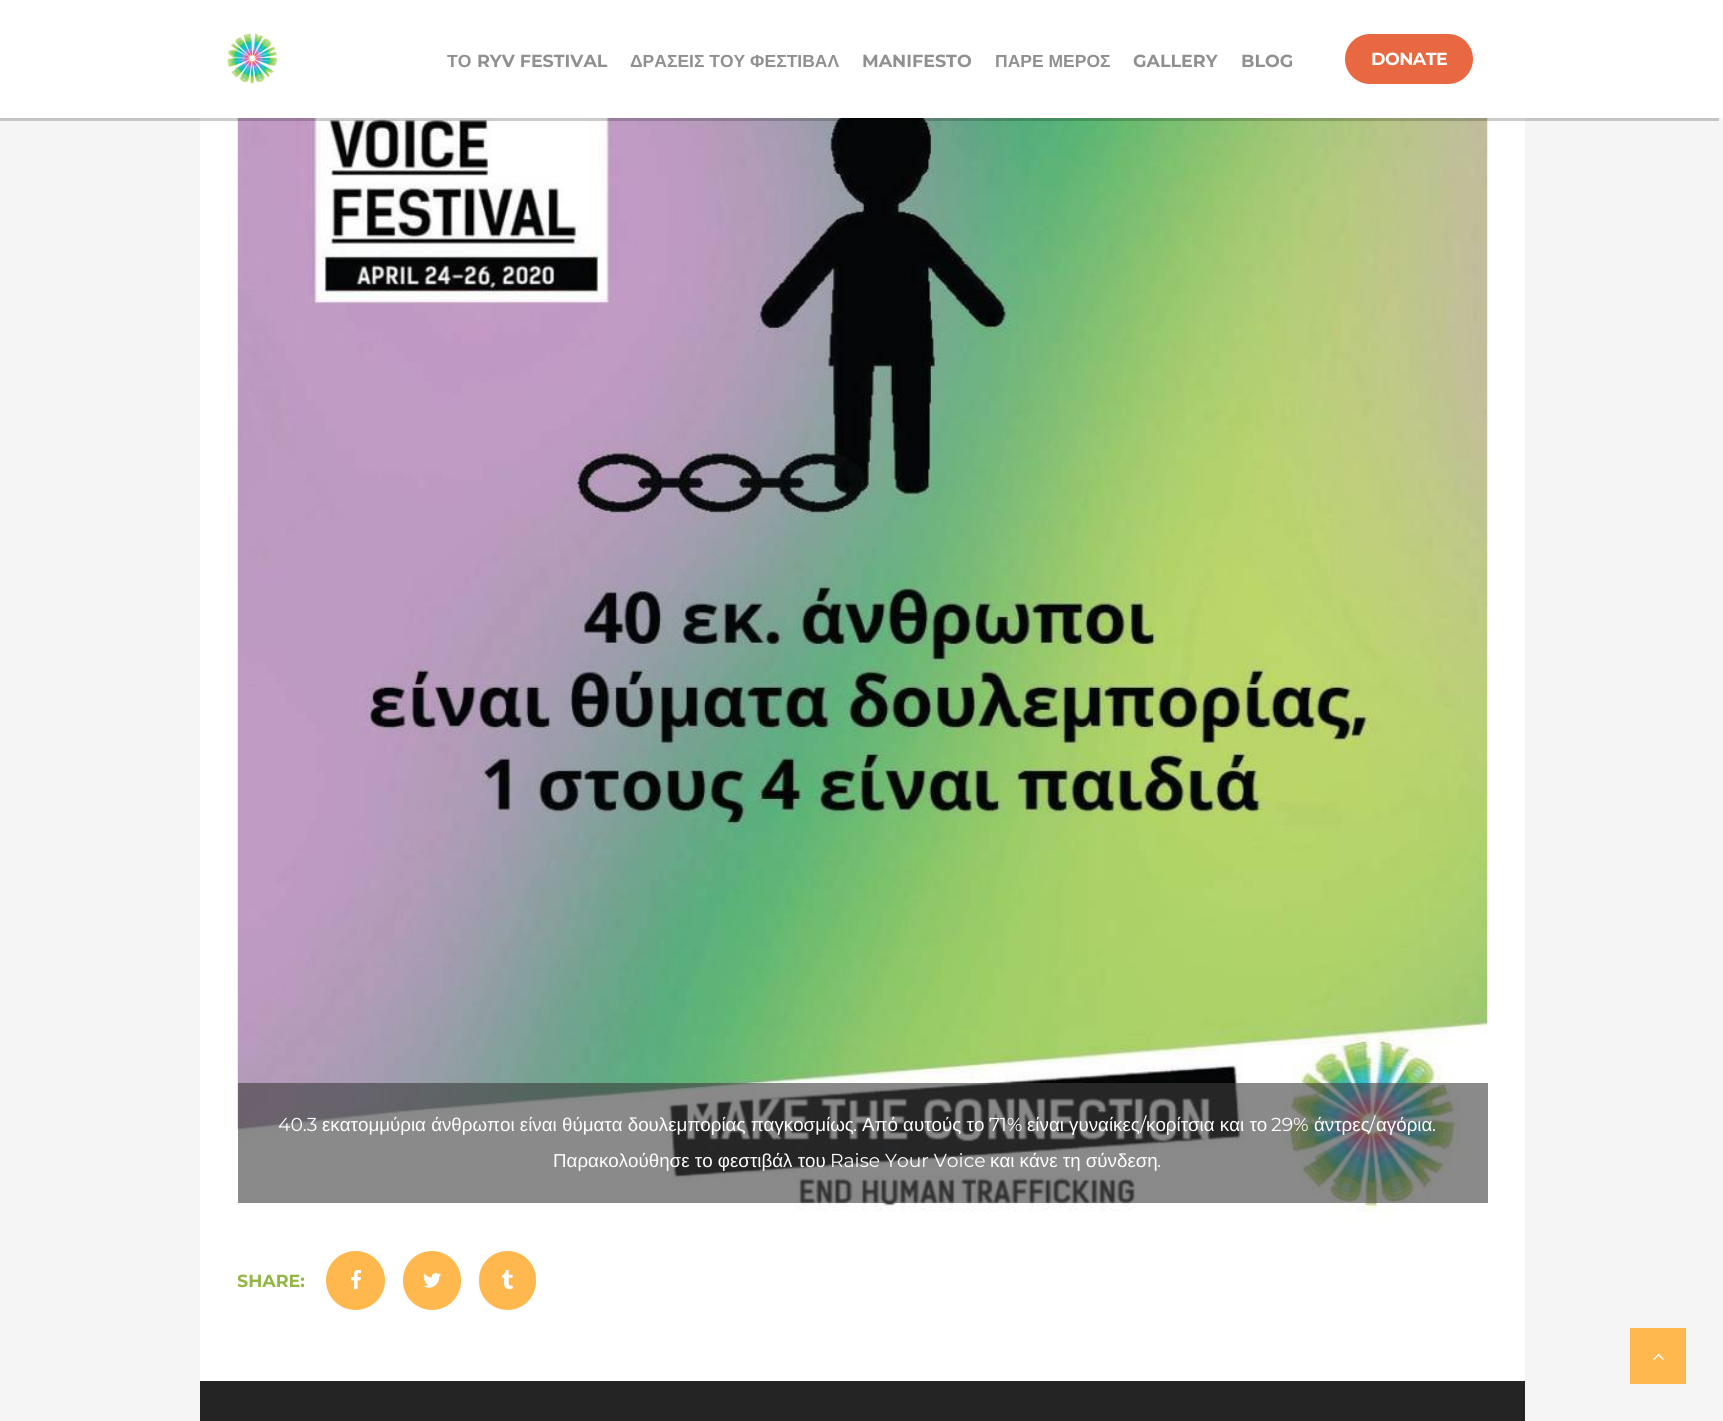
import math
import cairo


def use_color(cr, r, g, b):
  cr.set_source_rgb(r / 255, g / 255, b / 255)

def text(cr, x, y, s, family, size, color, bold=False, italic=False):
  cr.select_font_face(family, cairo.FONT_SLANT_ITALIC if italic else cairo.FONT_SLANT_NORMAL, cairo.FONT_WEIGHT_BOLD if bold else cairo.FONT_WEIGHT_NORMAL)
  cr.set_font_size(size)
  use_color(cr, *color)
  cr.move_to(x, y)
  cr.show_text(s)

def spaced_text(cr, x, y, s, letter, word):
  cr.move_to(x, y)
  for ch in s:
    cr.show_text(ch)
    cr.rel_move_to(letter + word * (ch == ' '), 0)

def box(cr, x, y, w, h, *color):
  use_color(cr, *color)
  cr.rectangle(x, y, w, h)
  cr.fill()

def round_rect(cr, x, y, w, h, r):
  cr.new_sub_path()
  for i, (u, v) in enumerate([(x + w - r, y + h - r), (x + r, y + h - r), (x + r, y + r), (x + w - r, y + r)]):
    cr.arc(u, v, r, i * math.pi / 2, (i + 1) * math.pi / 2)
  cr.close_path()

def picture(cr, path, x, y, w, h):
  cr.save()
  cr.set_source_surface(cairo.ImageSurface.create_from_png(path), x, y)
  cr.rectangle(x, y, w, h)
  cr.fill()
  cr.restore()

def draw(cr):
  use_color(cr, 245, 245, 245)
  cr.paint()
  box(cr, 200, 118, 1325, 1263, 255, 255, 255)
  picture(cr, "img_02.png", 237, 118, 1251, 1103)
  cr.set_source_rgba(0, 0, 0, 0.2)
  cr.new_path()
  cr.move_to(-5, 4)
  cr.line_to(-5, 121)
  cr.line_to(1719, 121)
  cr.line_to(1719, 118)
  cr.line_to(0, 118)
  cr.line_to(0, 4)
  cr.close_path()
  cr.fill()
  box(cr, 0, 0, 1723, 118, 255, 255, 255)
  picture(cr, "img_01.png", 227, 33, 51, 51)
  use_color(cr, 232, 105, 65)
  round_rect(cr, 1345, 34, 128, 50, 25)
  cr.fill()
  cr.set_source_rgba(0.235, 0.235, 0.235, 0.6)
  cr.rectangle(238, 1083, 1250, 120)
  cr.fill()
  use_color(cr, 255, 184, 78)
  cr.arc(355.5, 1280.5, 28, 0, 2 * math.pi)
  cr.fill_preserve()
  cr.set_line_width(3)
  cr.stroke()
  picture(cr, "img_03.png", 351, 1270, 11, 20)
  round_rect(cr, 404.5, 1252.5, 55, 56, 27.5)
  cr.fill_preserve()
  cr.stroke()
  picture(cr, "img_04.png", 423, 1272, 18, 16)
  round_rect(cr, 480.5, 1252.5, 54, 56, 27)
  cr.fill_preserve()
  cr.stroke()
  picture(cr, "img_05.png", 502, 1270, 11, 20)
  box(cr, 200, 1381, 1325, 40, 36, 36, 36)
  box(cr, 1630, 1328, 56, 56, 255, 184, 78)
  picture(cr, "img_06.png", 1653, 1353, 11, 7)
  text(cr, 447, 67, "ΤΟ", "Liberation Sans", 17.5, (144, 144, 144), bold=True)
  text(cr, 477, 67, "RYV FESTIVAL", "Montserrat", 17.5, (144, 144, 144), bold=True)
  text(cr, 630, 67, "ΔΡΑΣΕΙΣ ΤΟΥ ΦΕΣΤΙΒΑΛ", "Liberation Sans", 17.5, (144, 144, 144), bold=True)
  text(cr, 862, 67, "MANIFESTO", "Montserrat", 17.5, (144, 144, 144), bold=True)
  text(cr, 995, 67, "ΠΑΡΕ ΜΕΡΟΣ", "Liberation Sans", 17.5, (144, 144, 144), bold=True)
  text(cr, 1133, 67, "GALLERY", "Montserrat", 17.5, (144, 144, 144), bold=True)
  text(cr, 1241, 67, "BLOG", "Montserrat", 17.5, (144, 144, 144), bold=True)
  use_color(cr, 255, 255, 255)
  spaced_text(cr, 1371, 65, "DONATE", -0.5, 0)
  text(cr, 278, 1131, "40.3", "Montserrat", 18.75, (255, 255, 255))
  text(cr, 322, 1131, "εκατομμύρια άνθρωποι είναι θύματα δουλεμπορίας παγκοσμίως", "Liberation Sans", 18.75, (255, 255, 255))
  text(cr, 853, 1131, ".", "Montserrat", 18.75, (255, 255, 255))
  text(cr, 862, 1131, "Από αυτούς το", "Liberation Sans", 18.75, (255, 255, 255))
  text(cr, 989, 1131, "71%", "Montserrat", 18.75, (255, 255, 255))
  text(cr, 1027, 1131, "είναι γυναίκες", "Liberation Sans", 18.75, (255, 255, 255))
  text(cr, 1140, 1131, "/", "Montserrat", 18.75, (255, 255, 255))
  text(cr, 1146, 1131, "κορίτσια και το", "Liberation Sans", 18.75, (255, 255, 255))
  text(cr, 1271, 1131, "29%", "Montserrat", 18.75, (255, 255, 255))
  text(cr, 1314, 1131, "άντρες", "Liberation Sans", 18.75, (255, 255, 255))
  text(cr, 1369, 1131, "/", "Montserrat", 18.75, (255, 255, 255))
  text(cr, 1376, 1131, "αγόρια", "Liberation Sans", 18.75, (255, 255, 255))
  text(cr, 1432, 1131, ".", "Montserrat", 18.75, (255, 255, 255))
  text(cr, 553, 1167, "Παρακολούθησε το φεστιβάλ του", "Liberation Sans", 18.75, (255, 255, 255))
  text(cr, 830, 1167, "Raise Your Voice", "Montserrat", 18.75, (255, 255, 255))
  text(cr, 990, 1167, "και κάνε τη σύνδεση", "Liberation Sans", 18.75, (255, 255, 255))
  text(cr, 1157, 1167, ".", "Montserrat", 18.75, (255, 255, 255))
  cr.save()
  cr.rectangle(238, 1251, 298, 63)
  cr.clip()
  text(cr, 237, 1287, "SHARE:", "Montserrat", 17.5, (147, 182, 68), bold=True)
  cr.restore()


surface = cairo.ImageSurface(cairo.FORMAT_RGB24, 1723, 1421)
cr = cairo.Context(surface)
options = cairo.FontOptions()
options.set_hint_metrics(cairo.HINT_METRICS_OFF)
options.set_hint_style(cairo.HINT_STYLE_NONE)
cr.set_font_options(options)
cr.set_miter_limit(4)
draw(cr)
surface.write_to_png("out.png")
